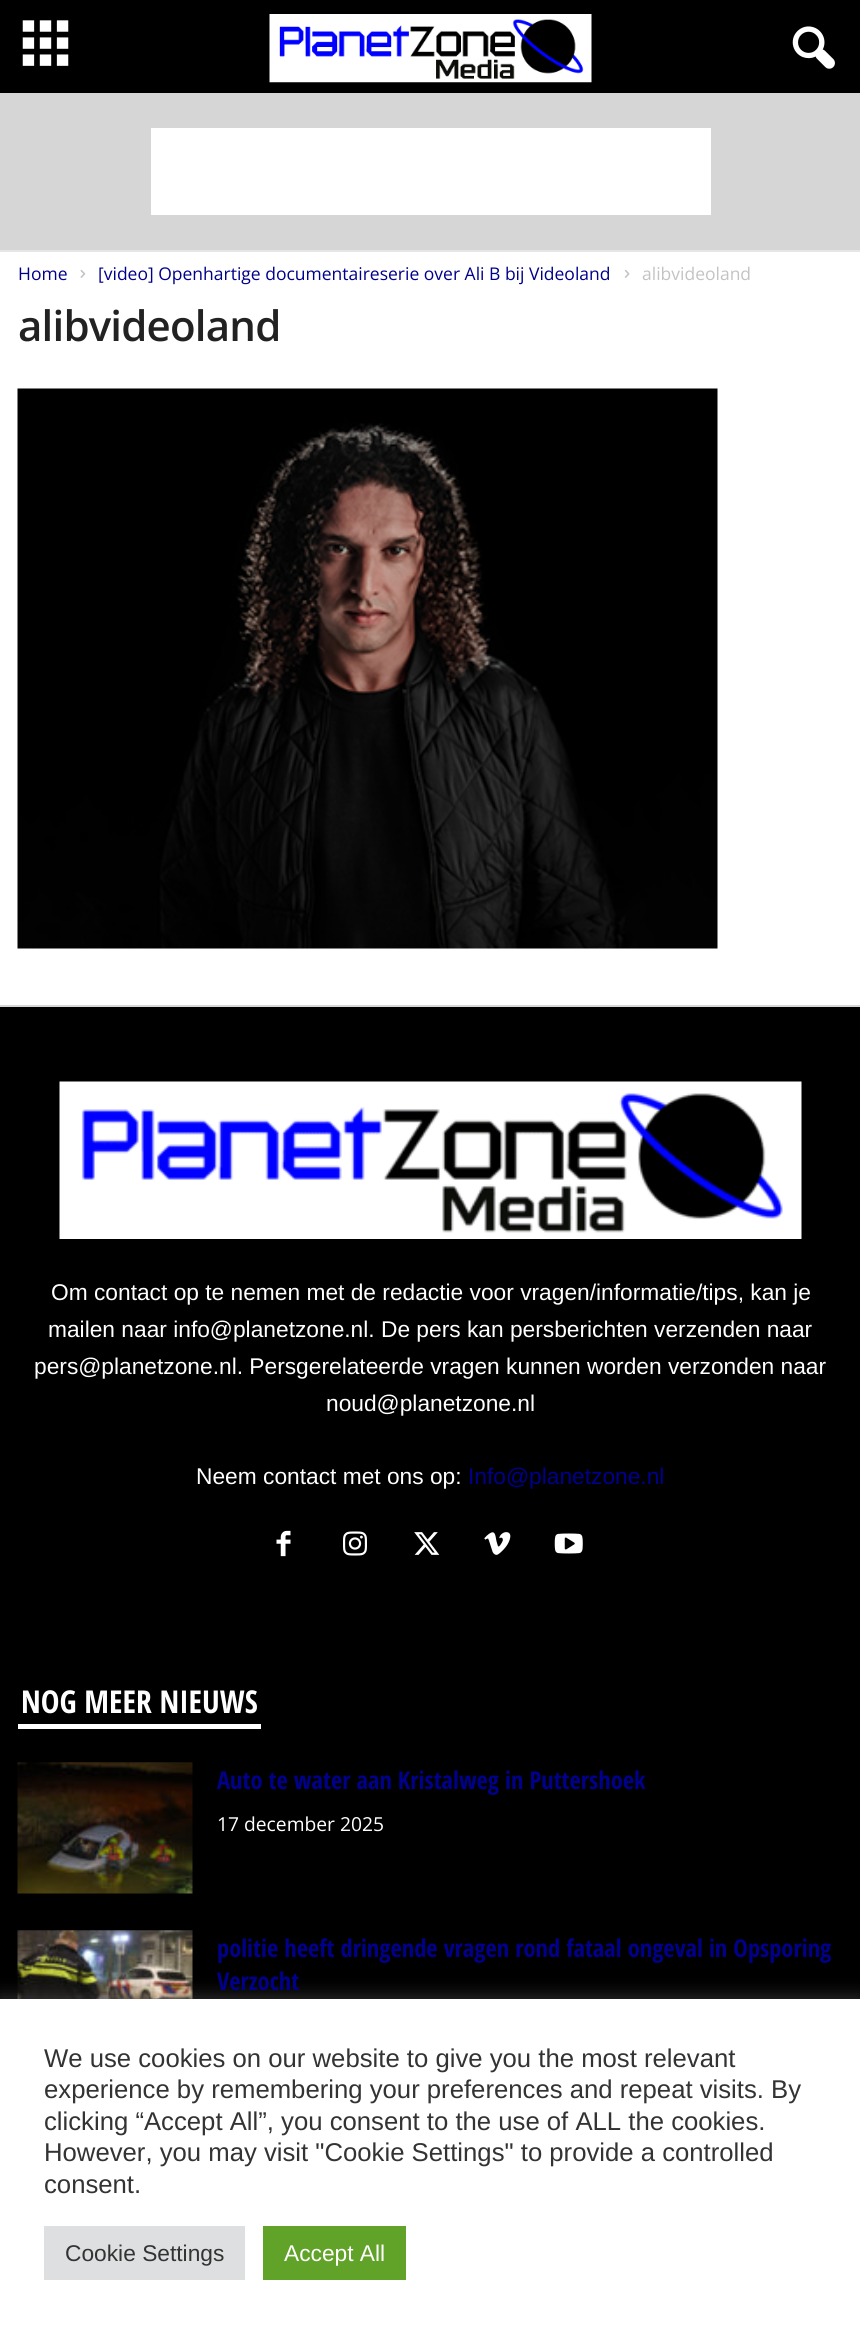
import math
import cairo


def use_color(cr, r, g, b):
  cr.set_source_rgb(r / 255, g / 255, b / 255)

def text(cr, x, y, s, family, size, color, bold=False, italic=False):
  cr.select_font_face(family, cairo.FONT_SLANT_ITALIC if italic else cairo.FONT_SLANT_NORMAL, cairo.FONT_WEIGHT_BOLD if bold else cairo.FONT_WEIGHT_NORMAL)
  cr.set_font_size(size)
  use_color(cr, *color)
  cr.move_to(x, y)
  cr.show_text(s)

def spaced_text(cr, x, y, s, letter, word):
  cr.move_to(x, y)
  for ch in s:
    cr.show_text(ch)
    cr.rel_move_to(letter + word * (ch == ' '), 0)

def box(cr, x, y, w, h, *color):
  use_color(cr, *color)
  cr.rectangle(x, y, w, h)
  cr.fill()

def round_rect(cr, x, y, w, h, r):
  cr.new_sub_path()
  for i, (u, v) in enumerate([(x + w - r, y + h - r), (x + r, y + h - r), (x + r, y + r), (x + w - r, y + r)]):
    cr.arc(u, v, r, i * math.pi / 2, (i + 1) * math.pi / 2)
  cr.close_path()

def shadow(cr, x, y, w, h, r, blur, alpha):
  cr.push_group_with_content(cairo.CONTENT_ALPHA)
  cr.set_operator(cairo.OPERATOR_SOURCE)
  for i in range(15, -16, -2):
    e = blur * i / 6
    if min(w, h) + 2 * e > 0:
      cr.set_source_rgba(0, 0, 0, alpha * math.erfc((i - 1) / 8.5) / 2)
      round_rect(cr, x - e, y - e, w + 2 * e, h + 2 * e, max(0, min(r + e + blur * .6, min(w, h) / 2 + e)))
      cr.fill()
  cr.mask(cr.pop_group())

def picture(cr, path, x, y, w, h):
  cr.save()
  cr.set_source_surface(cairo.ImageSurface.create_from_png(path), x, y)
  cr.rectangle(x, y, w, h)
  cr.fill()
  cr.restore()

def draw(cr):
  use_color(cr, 214, 214, 214)
  cr.paint()
  box(cr, 0, 0, 860, 93, 0, 0, 0)
  picture(cr, "img_01.png", 22, 20, 47, 46)
  picture(cr, "img_02.png", 269, 14, 323, 69)
  picture(cr, "img_03.png", 792, 26, 43, 43)
  box(cr, 0, 250, 860, 2, 230, 230, 230)
  box(cr, 151, 128, 560, 87, 255, 255, 255)
  box(cr, 0, 252, 860, 753, 255, 255, 255)
  picture(cr, "img_04.png", 80, 269, 6, 9)
  picture(cr, "img_05.png", 624, 269, 6, 9)
  picture(cr, "img_06.png", 17, 388, 701, 561)
  box(cr, 0, 1007, 860, 992, 0, 0, 0)
  picture(cr, "img_07.png", 59, 1081, 743, 158)
  picture(cr, "img_08.png", 276, 1530, 15, 27)
  picture(cr, "img_09.png", 343, 1531, 24, 25)
  picture(cr, "img_10.png", 414, 1532, 26, 23)
  picture(cr, "img_11.png", 484, 1532, 27, 23)
  picture(cr, "img_12.png", 554, 1533, 29, 21)
  box(cr, 18, 1724, 243, 5, 255, 255, 255)
  picture(cr, "img_13.png", 17, 1762, 176, 132)
  picture(cr, "img_14.png", 17, 1930, 176, 69)
  use_color(cr, 172, 171, 171)
  shadow(cr, 0, 1997, 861, 334, 0, 9, 0.3)
  box(cr, 0, 1999, 860, 333, 255, 255, 255)
  box(cr, 44, 2226, 201, 54, 222, 223, 224)
  box(cr, 263, 2226, 143, 54, 97, 162, 41)
  text(cr, 18, 280, "Home", "Open Sans", 17.5, (0, 0, 139))
  text(cr, 98, 280, "[video] Openhartige documentaireserie over Ali B bij Videoland", "Open Sans", 17.5, (0, 0, 139))
  text(cr, 642, 280, "alibvideoland", "Open Sans", 17.5, (195, 195, 195))
  cr.select_font_face("Open Sans SemiBold")
  cr.set_font_size(42)
  use_color(cr, 34, 34, 34)
  spaced_text(cr, 18, 341, "alibvideoland", -0.8, 0)
  text(cr, 51, 1300, "Om contact op te nemen met de redactie voor vragen/informatie/tips, kan je", "Liberation Sans", 22.75, (255, 255, 255))
  text(cr, 48, 1337, "mailen naar info@planetzone.nl. De pers kan persberichten verzenden naar", "Liberation Sans", 22.75, (255, 255, 255))
  text(cr, 34, 1374, "pers@planetzone.nl. Persgerelateerde vragen kunnen worden verzonden naar", "Liberation Sans", 22.75, (255, 255, 255))
  text(cr, 326, 1411, "noud@planetzone.nl", "Liberation Sans", 22.75, (255, 255, 255))
  text(cr, 196, 1484, "Neem contact met ons op:", "Liberation Sans", 22.75, (255, 255, 255))
  text(cr, 468, 1484, "Info@planetzone.nl", "Liberation Sans", 22.75, (0, 0, 139))
  text(cr, 21, 1713, "NOG MEER NIEUWS", "Open Sans Condensed", 31.5, (255, 255, 255), bold=True)
  text(cr, 217, 1789, "Auto te water aan Kristalweg in Puttershoek", "Open Sans Condensed", 24.5, (0, 0, 139), bold=True)
  text(cr, 217, 1831, "17 december 2025", "Open Sans", 19.25, (255, 255, 255))
  text(cr, 217, 1957, "politie heeft dringende vragen rond fataal ongeval in Opsporing", "Open Sans Condensed", 24.5, (0, 0, 139), bold=True)
  text(cr, 217, 1990, "Verzocht", "Open Sans Condensed", 24.5, (0, 0, 139), bold=True)
  text(cr, 44, 2067, "We use cookies on our website to give you the most relevant", "Liberation Sans", 25.7, (51, 51, 51))
  text(cr, 44, 2098, "experience by remembering your preferences and repeat visits. By", "Liberation Sans", 25.7, (51, 51, 51))
  text(cr, 44, 2130, "clicking “Accept All”, you consent to the use of ALL the cookies.", "Liberation Sans", 25.7, (51, 51, 51))
  text(cr, 44, 2161, "However, you may visit \"Cookie Settings\" to provide a controlled", "Liberation Sans", 25.7, (51, 51, 51))
  text(cr, 44, 2193, "consent.", "Liberation Sans", 25.7, (51, 51, 51))
  text(cr, 65, 2261, "Cookie Settings", "Liberation Sans", 22.75, (51, 51, 51))
  text(cr, 284, 2261, "Accept All", "Liberation Sans", 22.75, (255, 255, 255))


surface = cairo.ImageSurface(cairo.FORMAT_RGB24, 860, 2332)
cr = cairo.Context(surface)
options = cairo.FontOptions()
options.set_hint_metrics(cairo.HINT_METRICS_OFF)
options.set_hint_style(cairo.HINT_STYLE_NONE)
cr.set_font_options(options)
cr.set_miter_limit(4)
draw(cr)
surface.write_to_png("out.png")
